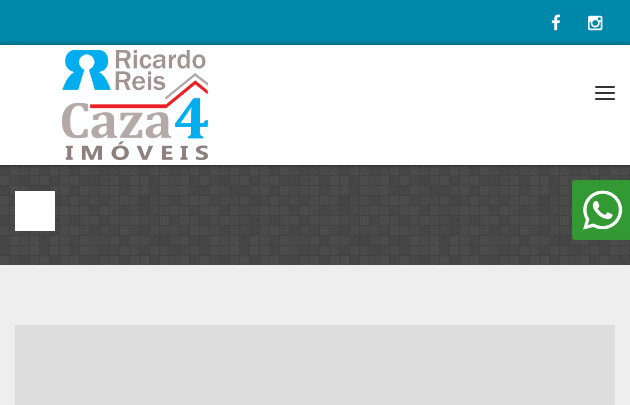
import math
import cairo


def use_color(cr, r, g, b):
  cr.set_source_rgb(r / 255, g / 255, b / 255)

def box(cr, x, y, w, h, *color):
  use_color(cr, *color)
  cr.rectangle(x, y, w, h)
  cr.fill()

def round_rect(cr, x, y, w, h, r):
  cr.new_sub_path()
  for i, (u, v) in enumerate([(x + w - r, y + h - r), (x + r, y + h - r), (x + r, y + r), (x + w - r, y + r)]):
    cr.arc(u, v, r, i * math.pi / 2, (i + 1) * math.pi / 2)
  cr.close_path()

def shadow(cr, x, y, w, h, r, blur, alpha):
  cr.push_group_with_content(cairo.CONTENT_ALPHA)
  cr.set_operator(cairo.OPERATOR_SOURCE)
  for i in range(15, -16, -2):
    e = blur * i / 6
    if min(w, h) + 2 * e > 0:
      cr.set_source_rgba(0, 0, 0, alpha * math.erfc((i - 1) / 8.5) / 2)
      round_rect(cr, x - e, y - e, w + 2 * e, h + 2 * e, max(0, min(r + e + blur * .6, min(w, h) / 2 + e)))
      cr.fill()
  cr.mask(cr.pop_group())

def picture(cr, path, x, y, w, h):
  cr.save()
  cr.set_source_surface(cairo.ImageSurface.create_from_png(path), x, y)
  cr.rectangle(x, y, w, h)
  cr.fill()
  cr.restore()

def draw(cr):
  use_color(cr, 255, 255, 255)
  cr.paint()
  box(cr, 0, 0, 630, 45, 0, 136, 170)
  picture(cr, "img_01.png", 551, 14, 9, 17)
  picture(cr, "img_02.png", 588, 15, 15, 16)
  picture(cr, "img_04.png", 0, 165, 630, 100)
  cr.save()
  cr.set_fill_rule(cairo.FILL_RULE_EVEN_ODD)
  cr.new_path()
  cr.move_to(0, 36)
  cr.line_to(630, 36)
  cr.line_to(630, 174)
  cr.line_to(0, 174)
  cr.close_path()
  cr.move_to(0, 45)
  cr.line_to(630, 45)
  cr.line_to(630, 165)
  cr.line_to(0, 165)
  cr.close_path()
  cr.clip()
  use_color(cr, 0, 0, 0)
  shadow(cr, 0, 45, 630, 120, 0, 2.5, 0.5)
  cr.restore()
  picture(cr, "img_03.png", 62, 50, 146, 110)
  use_color(cr, 51, 51, 51)
  round_rect(cr, 595, 86, 20, 2, 1)
  cr.fill()
  round_rect(cr, 595, 92, 20, 2, 1)
  cr.fill()
  round_rect(cr, 595, 98, 20, 2, 1)
  cr.fill()
  box(cr, 0, 265, 630, 140, 238, 238, 238)
  box(cr, 15, 191, 40, 40, 255, 255, 255)
  box(cr, 15, 325, 600, 80, 221, 221, 221)
  picture(cr, "img_05.png", 572, 180, 58, 60)


surface = cairo.ImageSurface(cairo.FORMAT_RGB24, 630, 405)
cr = cairo.Context(surface)
options = cairo.FontOptions()
options.set_hint_metrics(cairo.HINT_METRICS_OFF)
options.set_hint_style(cairo.HINT_STYLE_NONE)
cr.set_font_options(options)
cr.set_miter_limit(4)
draw(cr)
surface.write_to_png("out.png")
